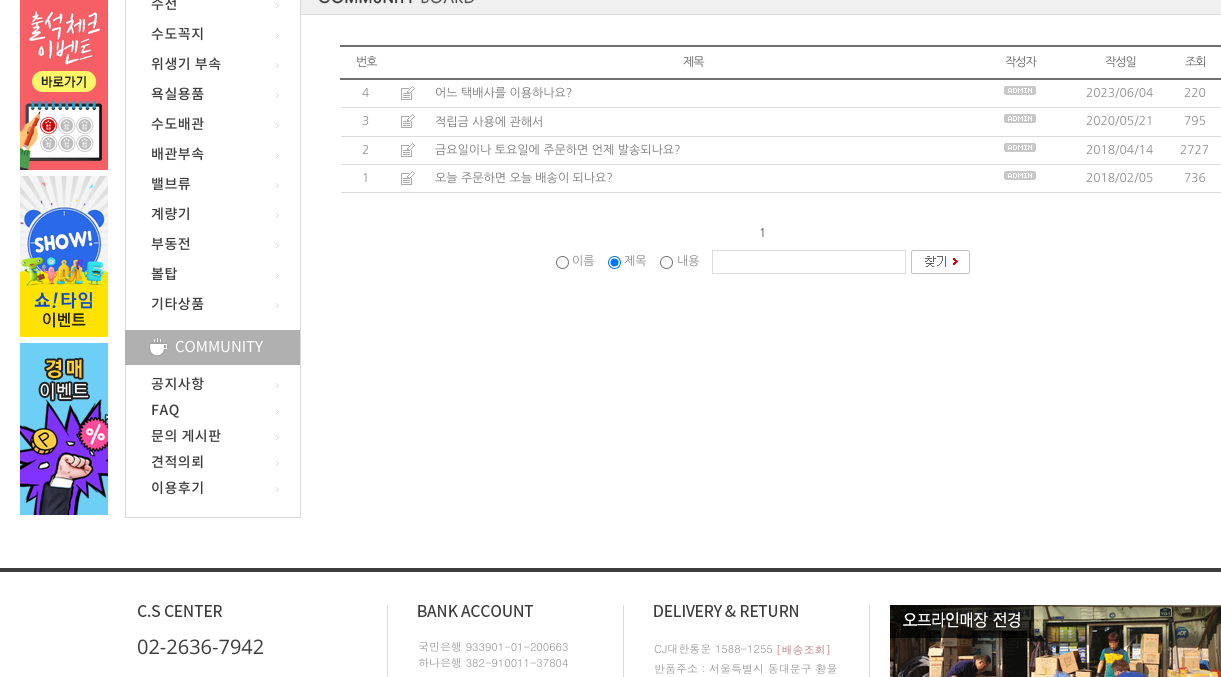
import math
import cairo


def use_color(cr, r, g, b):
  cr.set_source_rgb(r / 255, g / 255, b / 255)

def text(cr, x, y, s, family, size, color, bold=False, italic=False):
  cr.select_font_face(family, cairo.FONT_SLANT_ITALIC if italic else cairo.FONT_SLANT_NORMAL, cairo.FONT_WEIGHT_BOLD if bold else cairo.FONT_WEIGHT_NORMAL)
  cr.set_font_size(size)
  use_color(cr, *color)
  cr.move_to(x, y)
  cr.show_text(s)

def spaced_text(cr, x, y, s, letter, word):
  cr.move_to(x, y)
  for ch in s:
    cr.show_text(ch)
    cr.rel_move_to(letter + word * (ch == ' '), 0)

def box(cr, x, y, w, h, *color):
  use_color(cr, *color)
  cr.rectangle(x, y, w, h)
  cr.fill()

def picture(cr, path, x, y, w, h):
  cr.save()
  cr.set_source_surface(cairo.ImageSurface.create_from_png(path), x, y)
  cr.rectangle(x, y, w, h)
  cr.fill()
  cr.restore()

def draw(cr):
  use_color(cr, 255, 255, 255)
  cr.paint()
  picture(cr, "img_01.png", 20, 0, 88, 170)
  picture(cr, "img_02.png", 20, 176, 88, 161)
  picture(cr, "img_03.png", 20, 343, 88, 172)
  box(cr, 300, 0, 1, 518, 219, 219, 219)
  box(cr, 125, 517, 176, 1, 219, 219, 219)
  box(cr, 125, 0, 1, 518, 219, 219, 219)
  picture(cr, "img_04.png", 276, 3, 3, 5)
  picture(cr, "img_04.png", 276, 33, 3, 5)
  picture(cr, "img_04.png", 276, 63, 3, 5)
  picture(cr, "img_04.png", 276, 93, 3, 5)
  picture(cr, "img_04.png", 276, 123, 3, 5)
  picture(cr, "img_04.png", 276, 153, 3, 5)
  picture(cr, "img_04.png", 276, 183, 3, 5)
  picture(cr, "img_04.png", 276, 213, 3, 5)
  picture(cr, "img_04.png", 276, 243, 3, 5)
  picture(cr, "img_04.png", 276, 273, 3, 5)
  picture(cr, "img_04.png", 276, 303, 3, 5)
  picture(cr, "img_05.png", 125, 330, 175, 35)
  picture(cr, "img_04.png", 276, 383, 3, 5)
  picture(cr, "img_04.png", 276, 409, 3, 5)
  picture(cr, "img_04.png", 276, 435, 3, 5)
  picture(cr, "img_04.png", 276, 461, 3, 5)
  picture(cr, "img_04.png", 276, 487, 3, 5)
  box(cr, 301, 0, 920, 14, 240, 240, 240)
  box(cr, 301, 14, 920, 1, 219, 219, 219)
  picture(cr, "img_06.png", 319, 0, 155, 4)
  box(cr, 340, 45, 881, 2, 112, 112, 112)
  box(cr, 340, 78, 881, 2, 112, 112, 112)
  picture(cr, "img_07.png", 401, 86, 14, 14)
  picture(cr, "img_08.png", 1004, 86, 32, 9)
  box(cr, 341, 107, 880, 1, 219, 219, 219)
  picture(cr, "img_07.png", 401, 114, 14, 14)
  picture(cr, "img_08.png", 1004, 114, 32, 9)
  box(cr, 341, 136, 880, 1, 219, 219, 219)
  picture(cr, "img_07.png", 401, 143, 14, 14)
  picture(cr, "img_08.png", 1004, 143, 32, 9)
  box(cr, 341, 164, 880, 1, 219, 219, 219)
  picture(cr, "img_07.png", 401, 171, 14, 14)
  picture(cr, "img_08.png", 1004, 171, 32, 9)
  box(cr, 341, 192, 880, 1, 219, 219, 219)
  cr.arc(562.5, 262.5, 6, 0, 2 * math.pi)
  use_color(cr, 118, 118, 118)
  cr.set_line_width(1)
  cr.stroke()
  cr.arc(614.5, 262.5, 6, 0, 2 * math.pi)
  use_color(cr, 0, 117, 255)
  cr.stroke()
  cr.arc(614.5, 262.5, 4, 0, 2 * math.pi)
  cr.fill()
  cr.arc(666.5, 262.5, 6, 0, 2 * math.pi)
  use_color(cr, 118, 118, 118)
  cr.stroke()
  cr.rectangle(712.5, 250.5, 193, 23)
  use_color(cr, 220, 220, 220)
  cr.stroke()
  picture(cr, "img_09.png", 911, 250, 59, 24)
  box(cr, 0, 568, 1221, 4, 61, 61, 61)
  picture(cr, "img_10.png", 138, 605, 84, 12)
  box(cr, 387, 605, 1, 72, 219, 219, 219)
  picture(cr, "img_11.png", 418, 605, 116, 12)
  box(cr, 623, 605, 1, 72, 219, 219, 219)
  picture(cr, "img_12.png", 654, 605, 144, 12)
  box(cr, 869, 605, 1, 72, 219, 219, 219)
  picture(cr, "img_13.png", 890, 605, 331, 72)
  cr.select_font_face("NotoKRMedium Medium")
  cr.set_font_size(14)
  use_color(cr, 61, 61, 61)
  spaced_text(cr, 151, 9, "수전", 0.5, 0)
  spaced_text(cr, 151, 39, "수도꼭지", 0.5, 0)
  spaced_text(cr, 151, 69, "위생기 부속", 0.5, 0)
  spaced_text(cr, 151, 99, "욕실용품", 0.5, 0)
  spaced_text(cr, 151, 129, "수도배관", 0.5, 0)
  spaced_text(cr, 151, 159, "배관부속", 0.5, 0)
  spaced_text(cr, 151, 189, "밸브류", 0.5, 0)
  spaced_text(cr, 151, 219, "계량기", 0.5, 0)
  spaced_text(cr, 151, 249, "부동전", 0.5, 0)
  spaced_text(cr, 151, 279, "볼탑", 0.5, 0)
  spaced_text(cr, 151, 309, "기타상품", 0.5, 0)
  text(cr, 175, 352, "COMMUNITY", "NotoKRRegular", 15, (255, 255, 255))
  cr.select_font_face("NotoKRMedium Medium")
  cr.set_font_size(14)
  use_color(cr, 61, 61, 61)
  spaced_text(cr, 151, 389, "공지사항", 0.5, 0)
  spaced_text(cr, 151, 415, "FAQ", 0.5, 0)
  spaced_text(cr, 151, 441, "문의 게시판", 0.5, 0)
  spaced_text(cr, 151, 467, "견적의뢰", 0.5, 0)
  spaced_text(cr, 151, 493, "이용후기", 0.5, 0)
  cr.select_font_face("NanumGothic")
  cr.set_font_size(12)
  use_color(cr, 99, 99, 99)
  spaced_text(cr, 356, 66, "번호", -1, 0)
  spaced_text(cr, 683, 66, "제목", -1, 0)
  spaced_text(cr, 1005, 66, "작성자", -1, 0)
  spaced_text(cr, 1105, 66, "작성일", -1, 0)
  spaced_text(cr, 1185, 66, "조회", -1, 0)
  text(cr, 362, 97, "4", "NanumGothic", 12, (137, 137, 137))
  text(cr, 435, 97, "어느 택배사를 이용하나요?", "NanumGothic", 12, (120, 120, 120))
  text(cr, 1086, 97, "2023/06/04", "NanumGothic", 12, (137, 137, 137))
  text(cr, 1184, 97, "220", "NanumGothic", 12, (137, 137, 137))
  text(cr, 362, 125, "3", "NanumGothic", 12, (137, 137, 137))
  text(cr, 435, 126, "적립금 사용에 관해서", "NanumGothic", 12, (120, 120, 120))
  text(cr, 1086, 125, "2020/05/21", "NanumGothic", 12, (137, 137, 137))
  text(cr, 1184, 125, "795", "NanumGothic", 12, (137, 137, 137))
  text(cr, 362, 154, "2", "NanumGothic", 12, (137, 137, 137))
  text(cr, 435, 154, "금요일이나 토요일에 주문하면 언제 발송되나요?", "NanumGothic", 12, (120, 120, 120))
  text(cr, 1086, 154, "2018/04/14", "NanumGothic", 12, (137, 137, 137))
  text(cr, 1180, 154, "2727", "NanumGothic", 12, (137, 137, 137))
  text(cr, 362, 182, "1", "NanumGothic", 12, (137, 137, 137))
  text(cr, 435, 182, "오늘 주문하면 오늘 배송이 되나요?", "NanumGothic", 12, (120, 120, 120))
  text(cr, 1086, 182, "2018/02/05", "NanumGothic", 12, (137, 137, 137))
  text(cr, 1184, 182, "736", "NanumGothic", 12, (137, 137, 137))
  text(cr, 759, 237, "1", "NanumGothic", 12, (137, 137, 137), bold=True)
  text(cr, 572, 265, "이름", "NanumGothic", 12, (137, 137, 137))
  text(cr, 624, 265, "제목", "NanumGothic", 12, (137, 137, 137))
  text(cr, 677, 265, "내용", "NanumGothic", 12, (137, 137, 137))
  text(cr, 137, 654, "02-2636-7942", "Open Sans", 20, (61, 61, 61))
  text(cr, 418, 651, "국민은행 933901-01-200663", "Dotum", 11, (149, 149, 149))
  text(cr, 418, 667, "하나은행 382-910011-37804", "Dotum", 11, (149, 149, 149))
  text(cr, 654, 653, "CJ대한통운 1588-1255", "Dotum", 11, (149, 149, 149))
  text(cr, 776, 654, "[배송조회]", "Dotum", 11, (177, 117, 120))
  text(cr, 654, 673, "반품주소 : 서울특별시 동대문구 황물", "Dotum", 11, (149, 149, 149))


surface = cairo.ImageSurface(cairo.FORMAT_RGB24, 1221, 677)
cr = cairo.Context(surface)
options = cairo.FontOptions()
options.set_hint_metrics(cairo.HINT_METRICS_OFF)
options.set_hint_style(cairo.HINT_STYLE_NONE)
cr.set_font_options(options)
cr.set_miter_limit(4)
draw(cr)
surface.write_to_png("out.png")
